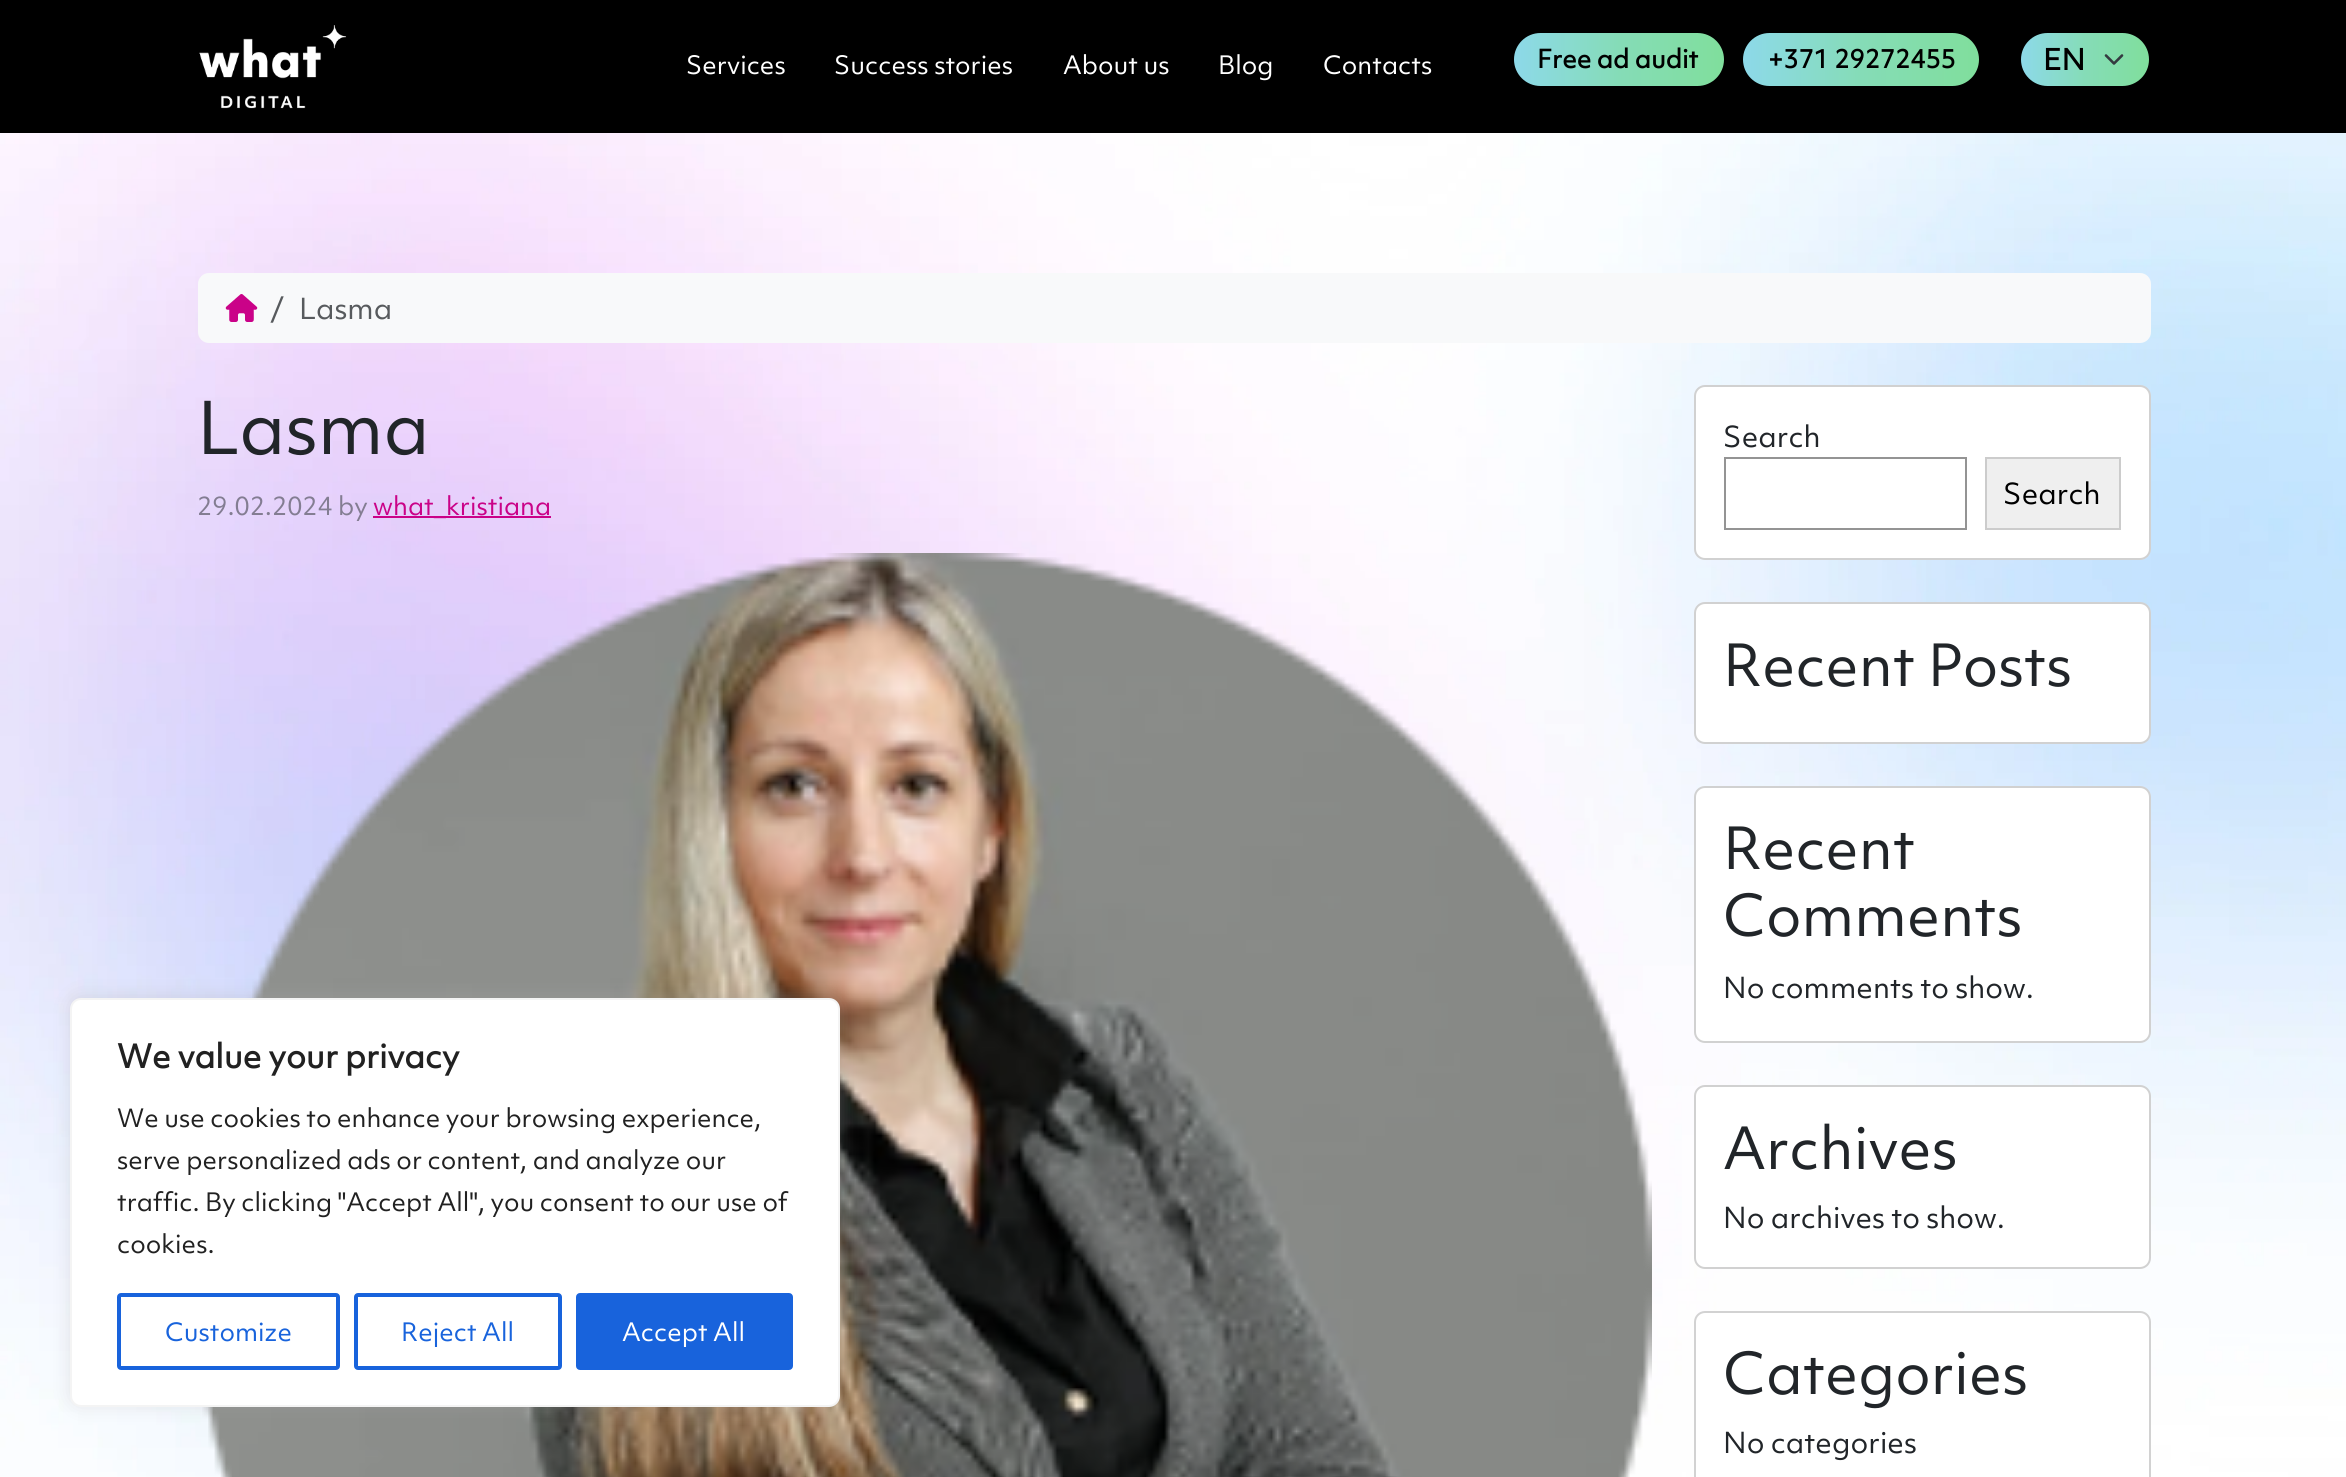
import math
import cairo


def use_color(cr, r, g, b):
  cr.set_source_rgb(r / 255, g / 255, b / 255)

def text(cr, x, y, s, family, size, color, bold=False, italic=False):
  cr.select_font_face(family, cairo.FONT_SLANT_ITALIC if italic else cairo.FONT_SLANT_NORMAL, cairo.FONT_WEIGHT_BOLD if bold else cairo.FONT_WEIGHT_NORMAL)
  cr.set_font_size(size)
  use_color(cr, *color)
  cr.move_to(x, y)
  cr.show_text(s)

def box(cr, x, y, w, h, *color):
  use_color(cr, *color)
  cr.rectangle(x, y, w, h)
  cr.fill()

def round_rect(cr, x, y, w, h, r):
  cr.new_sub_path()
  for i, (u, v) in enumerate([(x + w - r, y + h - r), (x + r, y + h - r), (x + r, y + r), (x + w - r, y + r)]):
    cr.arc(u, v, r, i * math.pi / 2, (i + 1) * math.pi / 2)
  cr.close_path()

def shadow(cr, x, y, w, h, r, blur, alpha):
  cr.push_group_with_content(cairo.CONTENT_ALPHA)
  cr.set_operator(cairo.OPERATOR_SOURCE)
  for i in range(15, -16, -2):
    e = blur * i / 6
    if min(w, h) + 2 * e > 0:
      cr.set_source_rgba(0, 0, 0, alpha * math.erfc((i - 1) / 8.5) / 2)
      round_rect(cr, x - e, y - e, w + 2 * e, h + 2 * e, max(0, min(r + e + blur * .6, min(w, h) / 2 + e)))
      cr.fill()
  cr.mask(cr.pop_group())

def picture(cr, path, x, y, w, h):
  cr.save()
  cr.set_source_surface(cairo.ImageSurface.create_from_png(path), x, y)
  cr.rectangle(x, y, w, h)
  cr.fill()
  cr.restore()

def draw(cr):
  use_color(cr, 255, 255, 255)
  cr.paint()
  box(cr, 0, 0, 2346, 133, 0, 0, 0)
  picture(cr, "img_01.png", 199, 25, 148, 84)
  gradient = cairo.LinearGradient(1514, 60, 1724, 59)
  gradient.add_color_stop_rgba(0, 0.553, 0.851, 0.914, 1)
  gradient.add_color_stop_rgba(0.5, 0.522, 0.863, 0.718, 1)
  gradient.add_color_stop_rgba(1, 0.502, 0.871, 0.612, 1)
  cr.set_source(gradient)
  round_rect(cr, 1514, 33, 210, 53, 26.5)
  cr.fill()
  gradient = cairo.LinearGradient(1743, 60, 1979, 59)
  gradient.add_color_stop_rgba(0, 0.553, 0.851, 0.914, 1)
  gradient.add_color_stop_rgba(0.5, 0.522, 0.863, 0.718, 1)
  gradient.add_color_stop_rgba(1, 0.502, 0.871, 0.612, 1)
  cr.set_source(gradient)
  round_rect(cr, 1743, 33, 236, 53, 26.5)
  cr.fill()
  gradient = cairo.LinearGradient(2021, 60, 2149, 60)
  gradient.add_color_stop_rgba(0, 0.553, 0.851, 0.914, 1)
  gradient.add_color_stop_rgba(0.5, 0.522, 0.863, 0.718, 1)
  gradient.add_color_stop_rgba(1, 0.502, 0.871, 0.612, 1)
  cr.set_source(gradient)
  round_rect(cr, 2021, 33, 128, 53, 26.5)
  cr.fill()
  cr.new_path()
  cr.move_to(2106, 55.5)
  cr.line_to(2114, 63.5)
  cr.line_to(2122, 55.5)
  use_color(cr, 52, 58, 64)
  cr.set_line_width(2.6)
  cr.set_line_cap(cairo.LINE_CAP_ROUND)
  cr.set_line_join(cairo.LINE_JOIN_ROUND)
  cr.stroke()
  picture(cr, "img_04.png", 0, 133, 2346, 1344)
  use_color(cr, 248, 249, 250)
  round_rect(cr, 198, 273, 1953, 70, 11)
  cr.fill()
  picture(cr, "img_02.png", 225, 294, 33, 28)
  box(cr, 373, 516, 178, 2, 202, 2, 136)
  picture(cr, "img_03.png", 202, 553, 1450, 924)
  use_color(cr, 255, 255, 255)
  round_rect(cr, 1694, 385, 457, 175, 11)
  cr.fill()
  round_rect(cr, 1695, 386, 455, 173, 10)
  cr.set_source_rgba(0, 0, 0, 0.18)
  cr.set_line_width(2)
  cr.set_line_cap(cairo.LINE_CAP_BUTT)
  cr.set_line_join(cairo.LINE_JOIN_MITER)
  cr.stroke()
  cr.rectangle(1725, 458, 241, 71)
  use_color(cr, 148, 148, 148)
  cr.stroke()
  use_color(cr, 239, 239, 239)
  cr.rectangle(1986, 458, 134, 71)
  cr.fill_preserve()
  use_color(cr, 204, 204, 204)
  cr.stroke()
  use_color(cr, 255, 255, 255)
  round_rect(cr, 1694, 602, 457, 142, 11)
  cr.fill()
  round_rect(cr, 1695, 603, 455, 140, 10)
  cr.set_source_rgba(0, 0, 0, 0.18)
  cr.stroke()
  use_color(cr, 255, 255, 255)
  round_rect(cr, 1694, 786, 457, 257, 11)
  cr.fill()
  round_rect(cr, 1695, 787, 455, 255, 10)
  cr.set_source_rgba(0, 0, 0, 0.18)
  cr.stroke()
  use_color(cr, 255, 255, 255)
  round_rect(cr, 1694, 1085, 457, 184, 11)
  cr.fill()
  round_rect(cr, 1695, 1086, 455, 182, 10)
  cr.set_source_rgba(0, 0, 0, 0.18)
  cr.stroke()
  use_color(cr, 255, 255, 255)
  round_rect(cr, 1695, 1312, 455, 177, 10)
  cr.fill_preserve()
  use_color(cr, 210, 210, 210)
  cr.stroke()
  use_color(cr, 172, 171, 171)
  shadow(cr, 70, 996, 770, 409, 11, 9, 0.3)
  use_color(cr, 255, 255, 255)
  round_rect(cr, 71, 999, 768, 407, 10)
  cr.fill_preserve()
  use_color(cr, 244, 244, 244)
  cr.stroke()
  round_rect(cr, 119, 1295, 219, 73, 2)
  use_color(cr, 24, 99, 220)
  cr.set_line_width(4)
  cr.stroke()
  round_rect(cr, 356, 1295, 204, 73, 2)
  cr.stroke()
  round_rect(cr, 578, 1295, 213, 73, 2)
  cr.fill_preserve()
  cr.stroke()
  text(cr, 686, 74, "Services", "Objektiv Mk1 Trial", 24.5, (255, 255, 255))
  text(cr, 834, 74, "Success stories", "Objektiv Mk1 Trial", 24.5, (255, 255, 255))
  text(cr, 1063, 74, "About us", "Objektiv Mk1 Trial", 24.5, (255, 255, 255))
  text(cr, 1218, 74, "Blog", "Objektiv Mk1 Trial", 24.5, (255, 255, 255))
  text(cr, 1323, 74, "Contacts", "Objektiv Mk1 Trial", 24.5, (255, 255, 255))
  text(cr, 1537, 68, "Free ad audit", "Objektiv Mk1 Trial", 24.5, (0, 0, 0), bold=True)
  text(cr, 1768, 68, "+371 29272455", "Objektiv Mk1 Trial", 24.5, (0, 0, 0), bold=True)
  text(cr, 2043, 70, "EN", "Objektiv Mk1 Trial", 28, (0, 0, 0), bold=True)
  text(cr, 270, 319, "/", "Objektiv Mk1 Trial", 28, (87, 90, 93))
  text(cr, 299, 319, "Lasma", "Objektiv Mk1 Trial", 28, (87, 90, 93))
  text(cr, 197, 454, "Lasma", "Objektiv Mk1 Trial", 70, (33, 37, 41))
  text(cr, 197, 515, "29.02.2024", "Objektiv Mk1 Trial", 24.5, (131, 125, 146))
  text(cr, 338, 515, "by", "Objektiv Mk1 Trial", 24.5, (131, 125, 146))
  text(cr, 373, 515, "what_kristiana", "Objektiv Mk1 Trial", 24.5, (202, 2, 136))
  text(cr, 1723, 447, "Search", "Objektiv Mk1 Trial", 28, (33, 37, 41))
  text(cr, 2003, 504, "Search", "Objektiv Mk1 Trial", 28, (0, 0, 0))
  text(cr, 1723, 686, "Recent Posts", "Objektiv Mk1 Trial", 56, (33, 37, 41))
  text(cr, 1723, 869, "Recent", "Objektiv Mk1 Trial", 56, (33, 37, 41))
  text(cr, 1723, 936, "Comments", "Objektiv Mk1 Trial", 56, (33, 37, 41))
  text(cr, 1723, 998, "No comments to show.", "Objektiv Mk1 Trial", 28, (33, 37, 41))
  text(cr, 1723, 1169, "Archives", "Objektiv Mk1 Trial", 56, (33, 37, 41))
  text(cr, 1723, 1228, "No archives to show.", "Objektiv Mk1 Trial", 28, (33, 37, 41))
  text(cr, 1723, 1394, "Categories", "Objektiv Mk1 Trial", 56, (33, 37, 41))
  text(cr, 1723, 1453, "No categories", "Objektiv Mk1 Trial", 28, (33, 37, 41))
  text(cr, 117, 1068, "We value your privacy", "Objektiv Mk1 Trial", 31.5, (33, 33, 33), bold=True)
  text(cr, 117, 1127, "We use cookies to enhance your browsing experience,", "Objektiv Mk1 Trial", 24.5, (33, 33, 33))
  text(cr, 117, 1169, "serve personalized ads or content, and analyze our", "Objektiv Mk1 Trial", 24.5, (33, 33, 33))
  text(cr, 117, 1211, "traffic. By clicking \"Accept All\", you consent to our use of", "Objektiv Mk1 Trial", 24.5, (33, 33, 33))
  text(cr, 117, 1253, "cookies.", "Objektiv Mk1 Trial", 24.5, (33, 33, 33))
  text(cr, 165, 1341, "Customize", "Objektiv Mk1 Trial", 24.5, (24, 99, 220))
  text(cr, 401, 1341, "Reject All", "Objektiv Mk1 Trial", 24.5, (24, 99, 220))
  text(cr, 622, 1341, "Accept All", "Objektiv Mk1 Trial", 24.5, (255, 255, 255))


surface = cairo.ImageSurface(cairo.FORMAT_RGB24, 2346, 1477)
cr = cairo.Context(surface)
options = cairo.FontOptions()
options.set_hint_metrics(cairo.HINT_METRICS_OFF)
options.set_hint_style(cairo.HINT_STYLE_NONE)
cr.set_font_options(options)
cr.set_miter_limit(4)
draw(cr)
surface.write_to_png("out.png")
